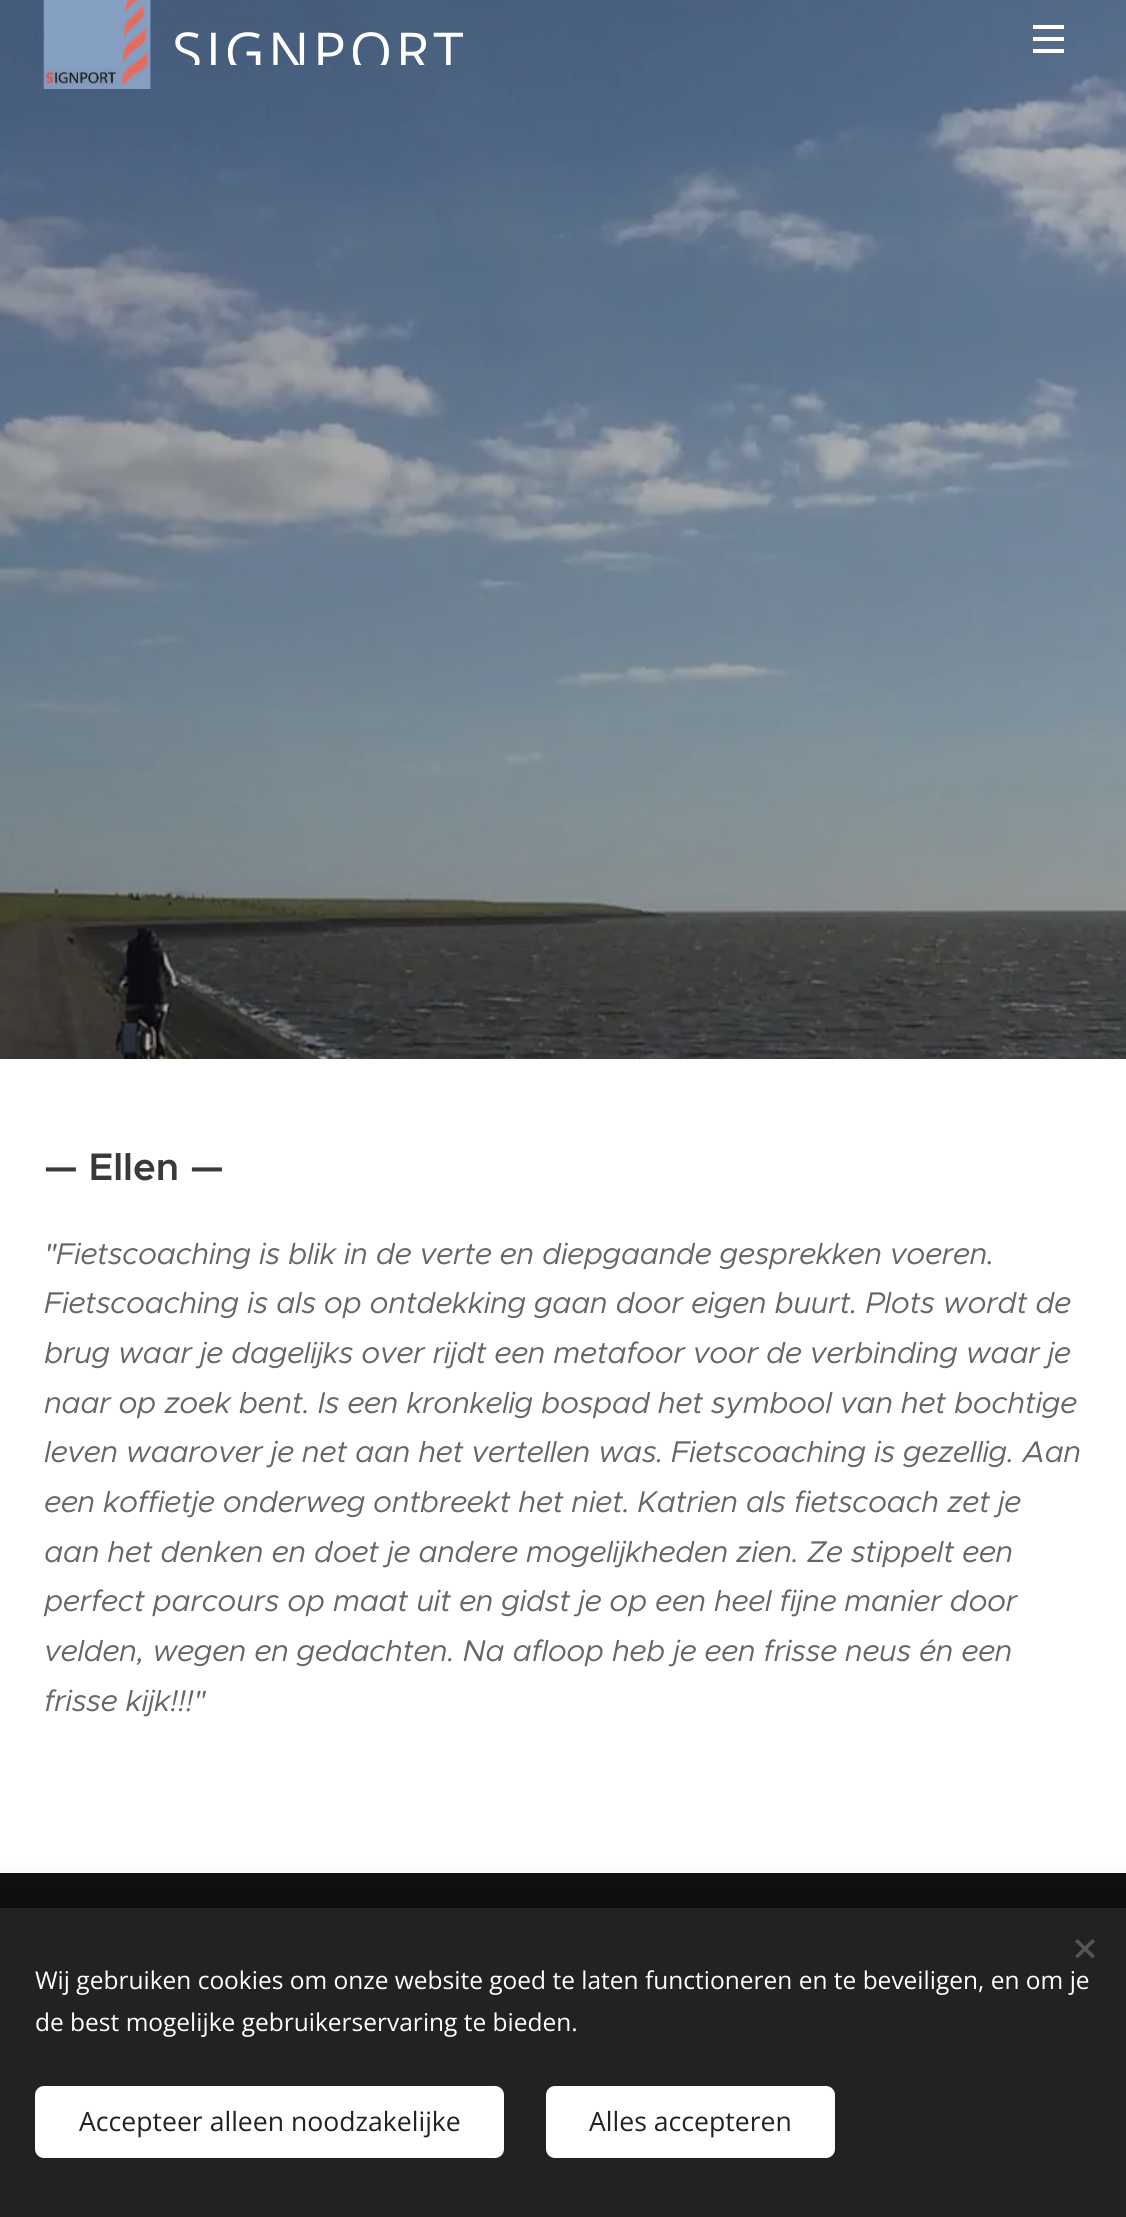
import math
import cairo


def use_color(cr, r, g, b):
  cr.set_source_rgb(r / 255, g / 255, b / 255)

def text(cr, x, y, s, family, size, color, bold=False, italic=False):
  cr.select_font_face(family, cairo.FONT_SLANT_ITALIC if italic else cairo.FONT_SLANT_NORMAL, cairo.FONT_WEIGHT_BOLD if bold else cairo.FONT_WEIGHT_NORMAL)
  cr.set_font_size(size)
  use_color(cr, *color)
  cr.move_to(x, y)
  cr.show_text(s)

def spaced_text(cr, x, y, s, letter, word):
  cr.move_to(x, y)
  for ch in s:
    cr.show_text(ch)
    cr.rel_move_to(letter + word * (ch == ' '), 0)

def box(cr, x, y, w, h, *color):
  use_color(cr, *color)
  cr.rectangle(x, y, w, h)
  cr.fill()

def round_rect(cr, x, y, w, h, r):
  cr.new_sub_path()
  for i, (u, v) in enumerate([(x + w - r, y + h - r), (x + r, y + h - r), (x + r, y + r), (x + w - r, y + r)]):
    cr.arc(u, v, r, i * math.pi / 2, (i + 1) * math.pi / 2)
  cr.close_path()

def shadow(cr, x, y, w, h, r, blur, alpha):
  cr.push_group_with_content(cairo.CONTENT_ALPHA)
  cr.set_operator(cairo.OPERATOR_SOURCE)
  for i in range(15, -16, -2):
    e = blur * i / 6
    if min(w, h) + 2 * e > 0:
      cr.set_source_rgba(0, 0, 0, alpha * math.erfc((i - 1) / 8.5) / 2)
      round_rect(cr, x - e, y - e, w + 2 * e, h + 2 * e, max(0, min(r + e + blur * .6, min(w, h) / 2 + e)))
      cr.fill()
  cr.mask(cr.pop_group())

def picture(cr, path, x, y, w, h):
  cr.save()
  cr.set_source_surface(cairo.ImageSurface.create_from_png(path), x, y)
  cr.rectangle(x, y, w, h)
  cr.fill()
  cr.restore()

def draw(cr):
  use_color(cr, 255, 255, 255)
  cr.paint()
  picture(cr, "img_02.png", 0, 0, 1126, 1059)
  picture(cr, "img_01.png", 43, 0, 108, 89)
  box(cr, 1033, 37, 31, 4, 255, 255, 255)
  box(cr, 1033, 25, 31, 4, 255, 255, 255)
  box(cr, 1033, 49, 31, 4, 255, 255, 255)
  box(cr, 0, 1873, 1126, 35, 16, 16, 16)
  use_color(cr, 0, 0, 0)
  shadow(cr, 0, 1908, 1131, 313, 0, 22, 0.33)
  box(cr, 0, 1908, 1126, 309, 34, 34, 34)
  use_color(cr, 85, 85, 85)
  cr.new_path()
  cr.move_to(1075, 1956)
  cr.line_to(1092.5, 1939)
  cr.line_to(1095, 1941.5)
  cr.line_to(1077.5, 1958.5)
  cr.close_path()
  cr.fill()
  cr.new_path()
  cr.move_to(1077.5, 1939)
  cr.line_to(1095, 1956)
  cr.line_to(1092.5, 1958.5)
  cr.line_to(1075, 1941.5)
  cr.close_path()
  cr.fill()
  use_color(cr, 255, 255, 255)
  round_rect(cr, 35, 2086, 469, 72, 9)
  cr.fill()
  round_rect(cr, 546, 2086, 289, 72, 9)
  cr.fill()
  cr.save()
  cr.rectangle(165, 9, 311, 56)
  cr.clip()
  cr.select_font_face("Open Sans")
  cr.set_font_size(55)
  spaced_text(cr, 172, 72, "SIGNPORT", 3.5, 0)
  cr.restore()
  text(cr, 44, 1180, "— Ellen —", "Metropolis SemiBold", 38.5, (57, 57, 57))
  cr.select_font_face("Metropolis", cairo.FONT_SLANT_ITALIC)
  cr.set_font_size(30.1)
  use_color(cr, 102, 102, 102)
  spaced_text(cr, 44, 1264, "\"Fietscoaching is blik in de verte en diepgaande gesprekken voeren.", -0.45, 0)
  spaced_text(cr, 44, 1313, "Fietscoaching is als op ontdekking gaan door eigen buurt. Plots wordt de", -0.45, 0)
  spaced_text(cr, 44, 1363, "brug waar je dagelijks over rijdt een metafoor voor de verbinding waar je", -0.45, 0)
  spaced_text(cr, 44, 1413, "naar op zoek bent. Is een kronkelig bospad het symbool van het bochtige", -0.45, 0)
  spaced_text(cr, 44, 1462, "leven waarover je net aan het vertellen was.", -0.45, 0)
  spaced_text(cr, 671, 1462, "Fietscoaching is gezellig. Aan", -0.45, 0)
  spaced_text(cr, 44, 1512, "een koffietje onderweg ontbreekt het niet.", -0.45, 0)
  spaced_text(cr, 637, 1512, "Katrien als fietscoach zet je", -0.45, 0)
  spaced_text(cr, 44, 1562, "aan het denken en doet je andere mogelijkheden zien. Ze stippelt een", -0.45, 0)
  spaced_text(cr, 44, 1611, "perfect parcours op maat uit en gidst je op een heel fijne manier door", -0.45, 0)
  spaced_text(cr, 44, 1661, "velden, wegen en gedachten. Na afloop heb je een frisse neus én een", -0.45, 0)
  spaced_text(cr, 44, 1711, "frisse kijk!!!\"", -0.45, 0)
  text(cr, 35, 1989, "Wij gebruiken cookies om onze website goed te laten functioneren en te beveiligen, en om je", "Open Sans", 24.5, (255, 255, 255))
  text(cr, 35, 2031, "de best mogelijke gebruikerservaring te bieden.", "Open Sans", 24.5, (255, 255, 255))
  text(cr, 79, 2131, "Accepteer alleen noodzakelijke", "Open Sans", 26.6, (34, 34, 34))
  text(cr, 589, 2131, "Alles accepteren", "Open Sans", 26.6, (34, 34, 34))


surface = cairo.ImageSurface(cairo.FORMAT_RGB24, 1126, 2217)
cr = cairo.Context(surface)
options = cairo.FontOptions()
options.set_hint_metrics(cairo.HINT_METRICS_OFF)
options.set_hint_style(cairo.HINT_STYLE_NONE)
cr.set_font_options(options)
cr.set_miter_limit(4)
draw(cr)
surface.write_to_png("out.png")
